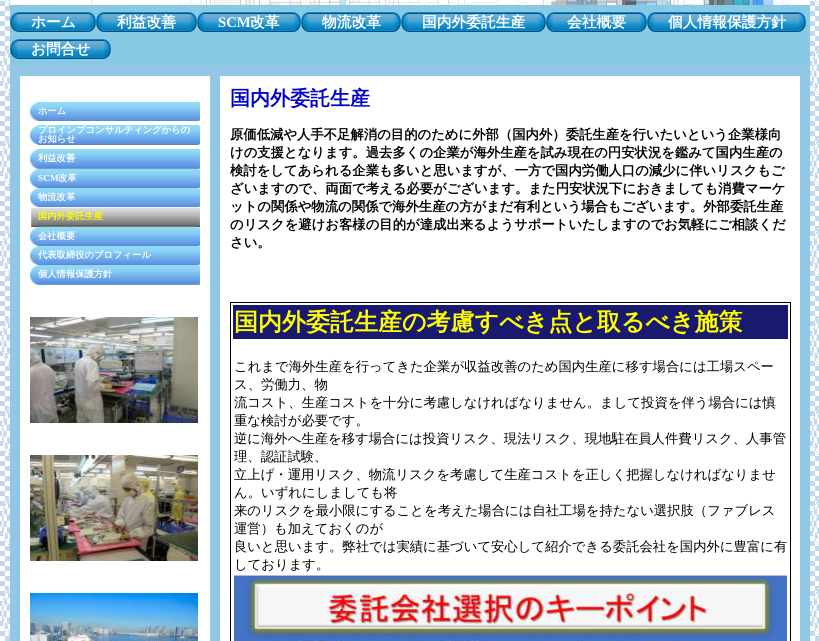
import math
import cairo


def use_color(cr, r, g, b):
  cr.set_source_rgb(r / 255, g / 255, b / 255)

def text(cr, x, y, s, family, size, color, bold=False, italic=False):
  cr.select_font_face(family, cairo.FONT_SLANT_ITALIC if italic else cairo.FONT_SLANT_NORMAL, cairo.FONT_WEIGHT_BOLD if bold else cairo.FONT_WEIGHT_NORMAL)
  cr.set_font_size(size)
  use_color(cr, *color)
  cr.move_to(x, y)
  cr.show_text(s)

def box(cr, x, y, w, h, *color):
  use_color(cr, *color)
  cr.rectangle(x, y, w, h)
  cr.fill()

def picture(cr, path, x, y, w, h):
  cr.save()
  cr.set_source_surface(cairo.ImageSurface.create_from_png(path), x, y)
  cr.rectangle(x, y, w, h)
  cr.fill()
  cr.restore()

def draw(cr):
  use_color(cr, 255, 255, 255)
  cr.paint()
  picture(cr, "img_01.png", 0, 0, 819, 641)
  box(cr, 10, 66, 800, 575, 147, 199, 230)
  picture(cr, "img_02.png", 10, 0, 800, 5)
  box(cr, 10, 5, 800, 61, 136, 202, 227)
  picture(cr, "img_03.png", 10, 12, 8, 20)
  picture(cr, "img_04.png", 88, 12, 8, 20)
  picture(cr, "img_05.png", 18, 12, 70, 20)
  picture(cr, "img_06.png", 96, 12, 8, 20)
  picture(cr, "img_04.png", 189, 12, 8, 20)
  picture(cr, "img_07.png", 104, 12, 85, 20)
  picture(cr, "img_06.png", 197, 12, 8, 20)
  picture(cr, "img_04.png", 293, 12, 8, 20)
  picture(cr, "img_08.png", 205, 12, 88, 20)
  picture(cr, "img_06.png", 301, 12, 8, 20)
  picture(cr, "img_04.png", 393, 12, 8, 20)
  picture(cr, "img_09.png", 309, 12, 84, 20)
  picture(cr, "img_06.png", 401, 12, 8, 20)
  picture(cr, "img_04.png", 538, 12, 8, 20)
  picture(cr, "img_10.png", 409, 12, 129, 20)
  picture(cr, "img_06.png", 546, 12, 8, 20)
  picture(cr, "img_04.png", 639, 12, 8, 20)
  picture(cr, "img_07.png", 554, 12, 85, 20)
  picture(cr, "img_06.png", 647, 12, 8, 20)
  picture(cr, "img_04.png", 798, 12, 8, 20)
  picture(cr, "img_11.png", 655, 12, 143, 20)
  picture(cr, "img_03.png", 10, 39, 8, 20)
  picture(cr, "img_04.png", 103, 39, 8, 20)
  picture(cr, "img_07.png", 18, 39, 85, 20)
  box(cr, 20, 76, 190, 565, 255, 255, 255)
  picture(cr, "img_12.png", 30, 102, 8, 19)
  picture(cr, "img_13.png", 198, 102, 2, 19)
  picture(cr, "img_14.png", 38, 102, 160, 19)
  picture(cr, "img_15.png", 30, 125, 8, 20)
  picture(cr, "img_16.png", 198, 125, 2, 20)
  picture(cr, "img_17.png", 38, 125, 160, 20)
  picture(cr, "img_18.png", 30, 149, 8, 20)
  picture(cr, "img_19.png", 198, 149, 2, 20)
  picture(cr, "img_20.png", 38, 149, 160, 20)
  picture(cr, "img_12.png", 30, 169, 8, 19)
  picture(cr, "img_13.png", 198, 169, 2, 19)
  picture(cr, "img_14.png", 38, 169, 160, 19)
  picture(cr, "img_12.png", 30, 188, 8, 19)
  picture(cr, "img_13.png", 198, 188, 2, 19)
  picture(cr, "img_14.png", 38, 188, 160, 19)
  picture(cr, "img_21.png", 31, 207, 7, 20)
  picture(cr, "img_22.png", 198, 207, 2, 20)
  picture(cr, "img_23.png", 38, 207, 160, 20)
  picture(cr, "img_12.png", 30, 227, 8, 19)
  picture(cr, "img_13.png", 198, 227, 2, 19)
  picture(cr, "img_14.png", 38, 227, 160, 19)
  picture(cr, "img_12.png", 30, 246, 8, 19)
  picture(cr, "img_13.png", 198, 246, 2, 19)
  picture(cr, "img_14.png", 38, 246, 160, 19)
  picture(cr, "img_18.png", 30, 265, 8, 20)
  picture(cr, "img_19.png", 198, 265, 2, 20)
  picture(cr, "img_20.png", 38, 265, 160, 20)
  picture(cr, "img_24.png", 30, 317, 168, 106)
  picture(cr, "img_25.png", 30, 455, 168, 106)
  picture(cr, "img_26.png", 30, 593, 168, 48)
  box(cr, 220, 76, 580, 565, 255, 255, 255)
  cr.rectangle(230.5, 302.5, 560, 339)
  use_color(cr, 0, 0, 0)
  cr.set_line_width(1)
  cr.stroke()
  box(cr, 233, 305, 555, 34, 25, 25, 112)
  picture(cr, "img_27.png", 234, 574, 553, 67)
  text(cr, 31, 27, "ホーム", "WenQuanYi Zen Hei", 14.75, (255, 255, 255), bold=True)
  text(cr, 117, 27, "利益改善", "WenQuanYi Zen Hei", 14.75, (255, 255, 255), bold=True)
  text(cr, 218, 27, "SCM", "Liberation Serif", 14.75, (255, 255, 255), bold=True)
  text(cr, 250, 27, "改革", "WenQuanYi Zen Hei", 14.75, (255, 255, 255), bold=True)
  text(cr, 322, 27, "物流改革", "WenQuanYi Zen Hei", 14.75, (255, 255, 255), bold=True)
  text(cr, 422, 27, "国内外委託生産", "WenQuanYi Zen Hei", 14.75, (255, 255, 255), bold=True)
  text(cr, 567, 27, "会社概要", "WenQuanYi Zen Hei", 14.75, (255, 255, 255), bold=True)
  text(cr, 668, 27, "個人情報保護方針", "WenQuanYi Zen Hei", 14.75, (255, 255, 255), bold=True)
  text(cr, 31, 54, "お問合せ", "WenQuanYi Zen Hei", 14.75, (255, 255, 255), bold=True)
  text(cr, 38, 114, "ホーム", "WenQuanYi Zen Hei", 9.3, (255, 255, 255), bold=True)
  text(cr, 38, 133, "プロインプコンサルティングからの", "WenQuanYi Zen Hei", 9.3, (255, 255, 255), bold=True)
  text(cr, 38, 142, "お知らせ", "WenQuanYi Zen Hei", 9.3, (255, 255, 255), bold=True)
  text(cr, 38, 161, "利益改善", "WenQuanYi Zen Hei", 9.3, (255, 255, 255), bold=True)
  text(cr, 38, 181, "SCM", "Liberation Serif", 9.3, (255, 255, 255), bold=True)
  text(cr, 58, 181, "改革", "WenQuanYi Zen Hei", 9.3, (255, 255, 255), bold=True)
  text(cr, 38, 200, "物流改革", "WenQuanYi Zen Hei", 9.3, (255, 255, 255), bold=True)
  text(cr, 38, 219, "国内外委託生産", "WenQuanYi Zen Hei", 9.3, (255, 255, 0), bold=True)
  text(cr, 38, 239, "会社概要", "WenQuanYi Zen Hei", 9.3, (255, 255, 255), bold=True)
  text(cr, 38, 258, "代表取締役のプロフィール", "WenQuanYi Zen Hei", 9.3, (255, 255, 255), bold=True)
  text(cr, 38, 277, "個人情報保護方針", "WenQuanYi Zen Hei", 9.3, (255, 255, 255), bold=True)
  text(cr, 230, 105, "国内外委託生産", "WenQuanYi Zen Hei", 20, (0, 0, 205), bold=True)
  text(cr, 230, 139, "原価低減や人手不足解消の目的のために外部（国内外）委託生産を行いたいという企業様向", "WenQuanYi Zen Hei", 13.35, (0, 0, 0), bold=True)
  text(cr, 230, 157, "けの支援となります。過去多くの企業が海外生産を試み現在の円安状況を鑑みて国内生産の", "WenQuanYi Zen Hei", 13.35, (0, 0, 0), bold=True)
  text(cr, 230, 175, "検討をしてあられる企業も多いと思いますが、一方で国内労働人口の減少に伴いリスクもご", "WenQuanYi Zen Hei", 13.35, (0, 0, 0), bold=True)
  text(cr, 230, 193, "ざいますので、両面で考える必要がございます。また円安状況下におきましても消費マーケ", "WenQuanYi Zen Hei", 13.35, (0, 0, 0), bold=True)
  text(cr, 230, 211, "ットの関係や物流の関係で海外生産の方がまだ有利という場合もございます。外部委託生産", "WenQuanYi Zen Hei", 13.35, (0, 0, 0), bold=True)
  text(cr, 230, 229, "のリスクを避けお客様の目的が達成出来るようサポートいたしますのでお気軽にご相談くだ", "WenQuanYi Zen Hei", 13.35, (0, 0, 0), bold=True)
  text(cr, 230, 247, "さい。", "WenQuanYi Zen Hei", 13.35, (0, 0, 0), bold=True)
  text(cr, 234, 330, "国内外委託生産の考慮すべき点と取るべき施策", "WenQuanYi Zen Hei", 24, (255, 255, 0), bold=True)
  text(cr, 234, 371, "これまで海外生産を行ってきた企業が収益改善のため国内生産に移す場合には工場スペー", "WenQuanYi Zen Hei Medium", 13.35, (0, 0, 0))
  text(cr, 234, 389, "ス、労働力、物", "WenQuanYi Zen Hei Medium", 13.35, (0, 0, 0))
  text(cr, 234, 407, "流コスト、生産コストを十分に考慮しなければなりません。まして投資を伴う場合には慎", "WenQuanYi Zen Hei Medium", 13.35, (0, 0, 0))
  text(cr, 234, 425, "重な検討が必要です。", "WenQuanYi Zen Hei Medium", 13.35, (0, 0, 0))
  text(cr, 234, 443, "逆に海外へ生産を移す場合には投資リスク、現法リスク、現地駐在員人件費リスク、人事管", "WenQuanYi Zen Hei Medium", 13.35, (0, 0, 0))
  text(cr, 234, 461, "理、認証試験、", "WenQuanYi Zen Hei Medium", 13.35, (0, 0, 0))
  text(cr, 234, 479, "立上げ・運用リスク、物流リスクを考慮して生産コストを正しく把握しなければなりませ", "WenQuanYi Zen Hei Medium", 13.35, (0, 0, 0))
  text(cr, 234, 497, "ん。いずれにしましても将", "WenQuanYi Zen Hei Medium", 13.35, (0, 0, 0))
  text(cr, 234, 515, "来のリスクを最小限にすることを考えた場合には自社工場を持たない選択肢（ファブレス", "WenQuanYi Zen Hei Medium", 13.35, (0, 0, 0))
  text(cr, 234, 533, "運営）も加えておくのが", "WenQuanYi Zen Hei Medium", 13.35, (0, 0, 0))
  text(cr, 234, 551, "良いと思います。弊社では実績に基づいて安心して紹介できる委託会社を国内外に豊富に有", "WenQuanYi Zen Hei Medium", 13.35, (0, 0, 0))
  text(cr, 234, 569, "しております。", "WenQuanYi Zen Hei Medium", 13.35, (0, 0, 0))


surface = cairo.ImageSurface(cairo.FORMAT_RGB24, 819, 641)
cr = cairo.Context(surface)
options = cairo.FontOptions()
options.set_hint_metrics(cairo.HINT_METRICS_OFF)
options.set_hint_style(cairo.HINT_STYLE_NONE)
cr.set_font_options(options)
cr.set_miter_limit(4)
draw(cr)
surface.write_to_png("out.png")
